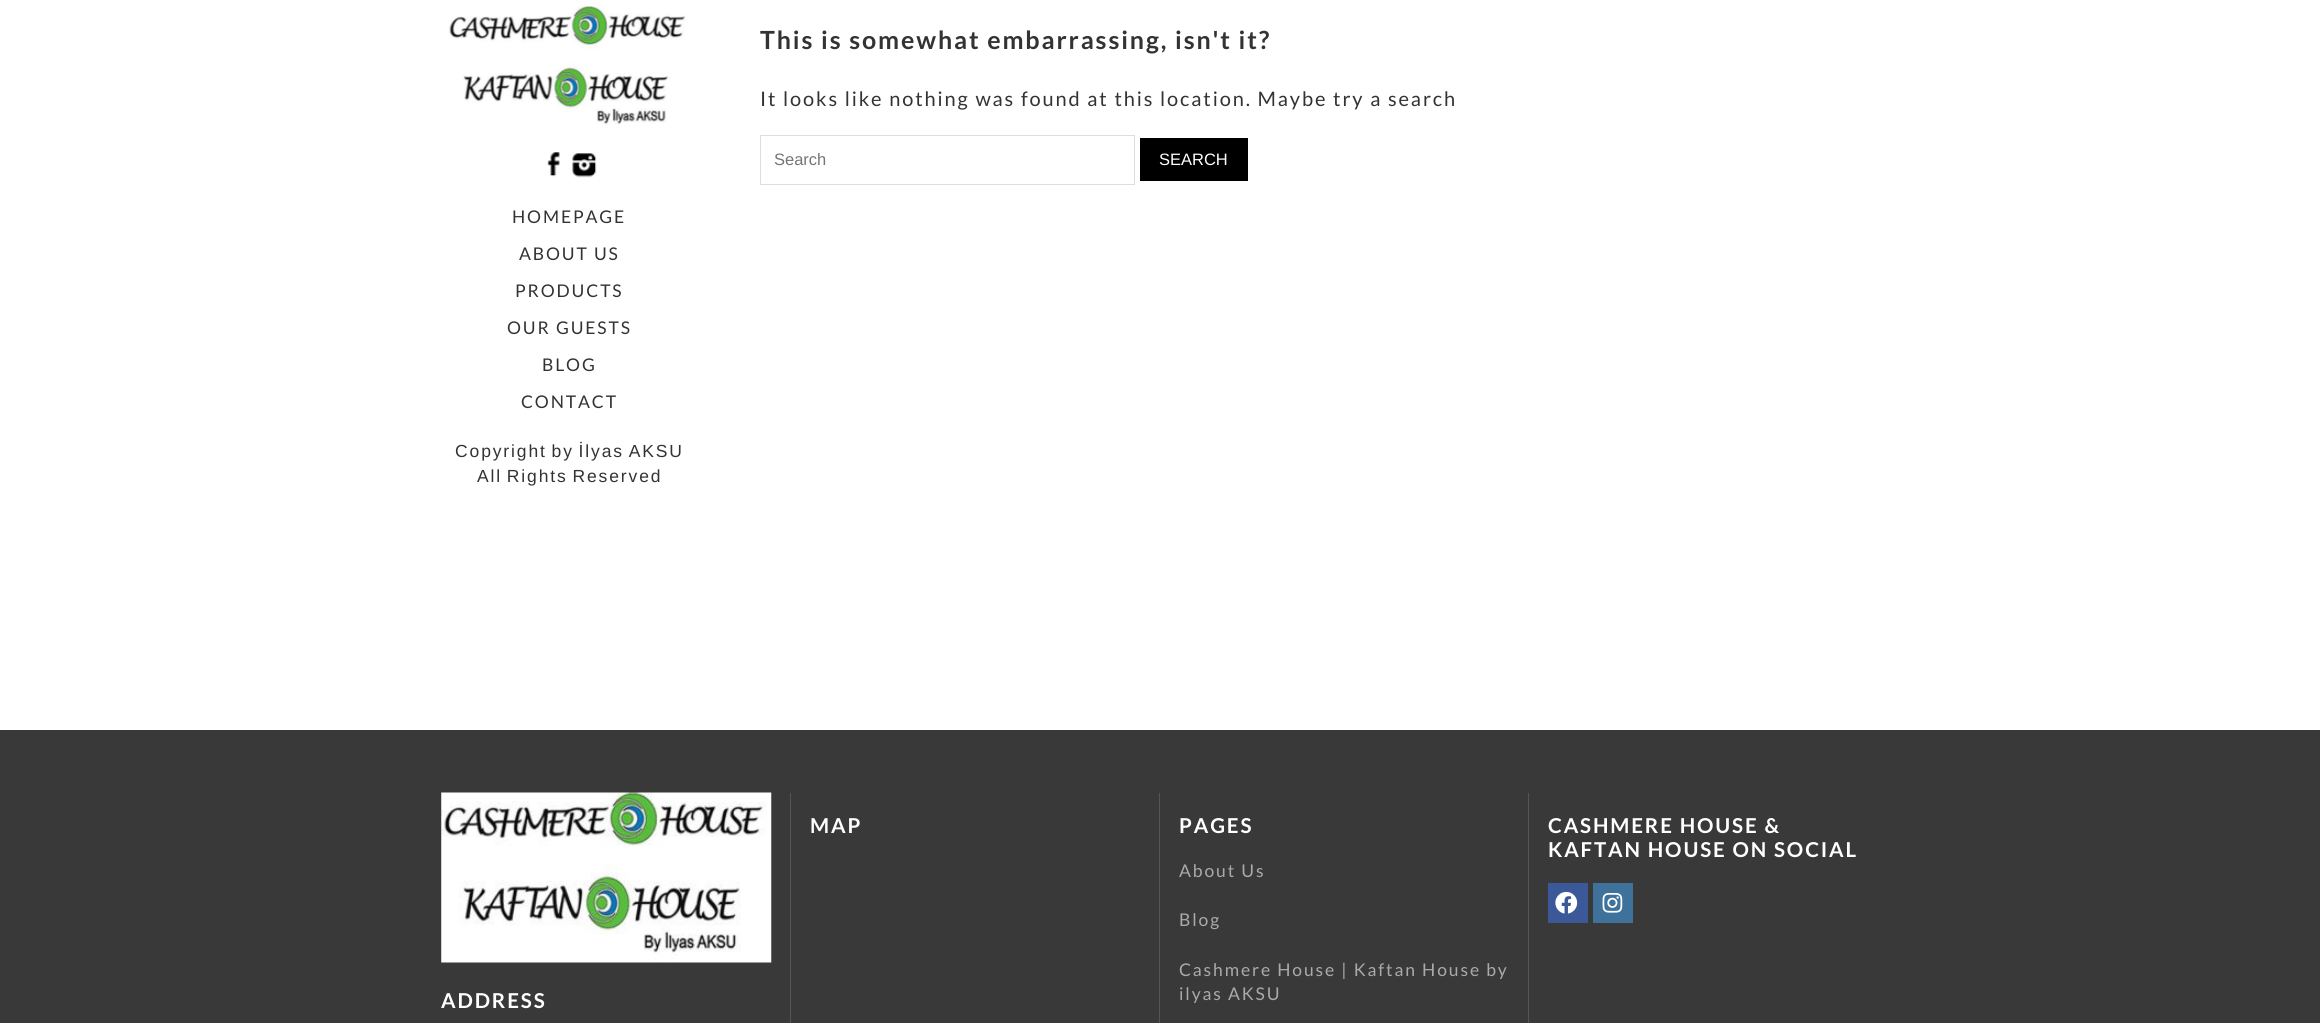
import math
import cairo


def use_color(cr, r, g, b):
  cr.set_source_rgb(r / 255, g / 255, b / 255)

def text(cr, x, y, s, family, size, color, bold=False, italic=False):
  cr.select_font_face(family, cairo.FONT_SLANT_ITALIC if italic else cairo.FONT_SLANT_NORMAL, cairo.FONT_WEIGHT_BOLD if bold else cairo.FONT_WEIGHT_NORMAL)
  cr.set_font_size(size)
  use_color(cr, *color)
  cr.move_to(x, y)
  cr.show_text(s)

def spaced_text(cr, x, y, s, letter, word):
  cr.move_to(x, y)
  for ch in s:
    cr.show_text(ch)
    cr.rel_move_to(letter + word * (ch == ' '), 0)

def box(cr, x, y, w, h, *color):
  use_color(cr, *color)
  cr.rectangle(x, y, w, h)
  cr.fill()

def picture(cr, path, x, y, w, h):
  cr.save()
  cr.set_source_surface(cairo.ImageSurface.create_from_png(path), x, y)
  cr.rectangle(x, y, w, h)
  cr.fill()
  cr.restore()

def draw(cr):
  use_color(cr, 255, 255, 255)
  cr.paint()
  cr.rectangle(760.5, 135.5, 374, 49)
  use_color(cr, 221, 221, 221)
  cr.set_line_width(1)
  cr.stroke()
  box(cr, 1140, 138, 108, 43, 0, 0, 0)
  picture(cr, "img_01.png", 449, 6, 237, 119)
  picture(cr, "img_02.png", 547, 152, 13, 25)
  picture(cr, "img_03.png", 572, 153, 25, 25)
  box(cr, 0, 730, 2320, 293, 57, 57, 57)
  box(cr, 1159, 793, 1, 230, 85, 85, 85)
  box(cr, 1528, 793, 1, 230, 85, 85, 85)
  box(cr, 1548, 883, 40, 40, 59, 89, 152)
  picture(cr, "img_04.png", 1555, 891, 23, 23)
  box(cr, 1593, 883, 40, 40, 63, 114, 155)
  picture(cr, "img_05.png", 1602, 893, 21, 20)
  box(cr, 790, 793, 1, 230, 85, 85, 85)
  picture(cr, "img_06.png", 441, 792, 331, 171)
  cr.select_font_face("Lato", cairo.FONT_SLANT_NORMAL, cairo.FONT_WEIGHT_BOLD)
  cr.set_font_size(25)
  use_color(cr, 51, 51, 51)
  spaced_text(cr, 760, 49, "This is somewhat embarrassing, isn't it?", 1.88, 0)
  cr.select_font_face("Lato")
  cr.set_font_size(20)
  spaced_text(cr, 760, 106, "It looks like nothing was found at this location. Maybe try a search", 1.88, 0)
  text(cr, 774, 165, "Search", "Liberation Sans", 16.5, (117, 117, 117))
  text(cr, 1159, 165, "SEARCH", "Liberation Sans", 16.5, (255, 255, 255))
  cr.select_font_face("Lato")
  cr.set_font_size(17.5)
  use_color(cr, 51, 51, 51)
  spaced_text(cr, 512, 223, "HOMEPAGE", 1.88, 0)
  spaced_text(cr, 519, 260, "ABOUT US", 1.88, 0)
  spaced_text(cr, 515, 297, "PRODUCTS", 1.88, 0)
  spaced_text(cr, 507, 334, "OUR GUESTS", 1.88, 0)
  spaced_text(cr, 542, 371, "BLOG", 1.88, 0)
  spaced_text(cr, 521, 408, "CONTACT", 1.88, 0)
  cr.select_font_face("Liberation Sans")
  spaced_text(cr, 455, 457, "Copyright by İlyas AKSU", 1.88, -2)
  spaced_text(cr, 477, 482, "All Rights Reserved", 1.88, -2)
  cr.select_font_face("Lato", cairo.FONT_SLANT_NORMAL, cairo.FONT_WEIGHT_BOLD)
  cr.set_font_size(20.5)
  use_color(cr, 255, 255, 255)
  spaced_text(cr, 810, 833, "MAP", 1.88, 0)
  spaced_text(cr, 1179, 833, "PAGES", 1.88, 0)
  cr.select_font_face("Lato")
  cr.set_font_size(17.5)
  use_color(cr, 170, 170, 170)
  spaced_text(cr, 1179, 877, "About Us", 1.88, 0)
  spaced_text(cr, 1179, 926, "Blog", 1.88, 0)
  spaced_text(cr, 1179, 976, "Cashmere House | Kaftan House by", 1.88, 0)
  spaced_text(cr, 1179, 1000, "ilyas AKSU", 1.88, 0)
  cr.select_font_face("Lato", cairo.FONT_SLANT_NORMAL, cairo.FONT_WEIGHT_BOLD)
  cr.set_font_size(20.5)
  use_color(cr, 255, 255, 255)
  spaced_text(cr, 1548, 833, "CASHMERE HOUSE &", 1.88, 0)
  spaced_text(cr, 1548, 857, "KAFTAN HOUSE ON SOCIAL", 1.88, 0)
  spaced_text(cr, 441, 1008, "ADDRESS", 1.88, 0)


surface = cairo.ImageSurface(cairo.FORMAT_RGB24, 2320, 1023)
cr = cairo.Context(surface)
options = cairo.FontOptions()
options.set_hint_metrics(cairo.HINT_METRICS_OFF)
options.set_hint_style(cairo.HINT_STYLE_NONE)
cr.set_font_options(options)
cr.set_miter_limit(4)
draw(cr)
surface.write_to_png("out.png")
